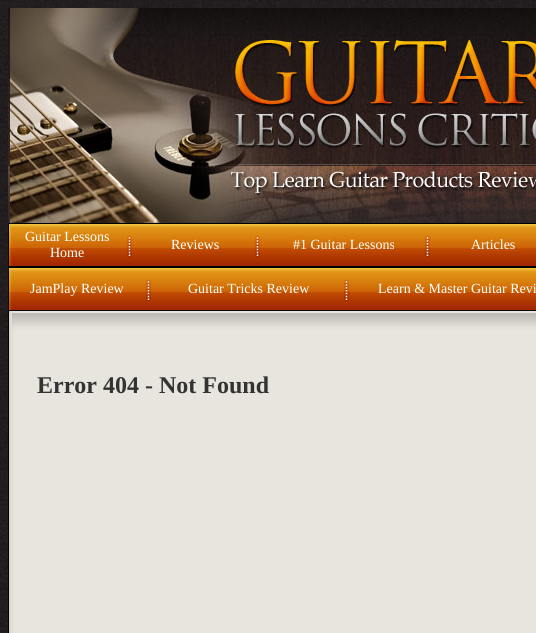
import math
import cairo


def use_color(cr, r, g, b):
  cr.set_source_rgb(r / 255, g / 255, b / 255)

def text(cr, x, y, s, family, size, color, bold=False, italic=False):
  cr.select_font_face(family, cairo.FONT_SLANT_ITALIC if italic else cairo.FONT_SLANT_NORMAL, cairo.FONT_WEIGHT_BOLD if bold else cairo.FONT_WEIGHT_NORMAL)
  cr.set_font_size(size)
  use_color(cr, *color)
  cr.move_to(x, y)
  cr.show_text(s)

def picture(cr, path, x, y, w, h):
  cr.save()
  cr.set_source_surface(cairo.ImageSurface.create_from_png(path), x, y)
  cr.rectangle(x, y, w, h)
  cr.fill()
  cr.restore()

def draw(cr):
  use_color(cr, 255, 255, 255)
  cr.paint()
  picture(cr, "img_01.png", 0, 0, 536, 633)
  picture(cr, "img_02.png", 8, 8, 528, 215)
  picture(cr, "img_03.png", 8, 223, 528, 44)
  picture(cr, "img_04.png", 126, 235, 7, 23)
  picture(cr, "img_04.png", 254, 235, 7, 23)
  picture(cr, "img_04.png", 424, 235, 7, 23)
  picture(cr, "img_03.png", 8, 267, 528, 44)
  picture(cr, "img_04.png", 145, 279, 7, 23)
  picture(cr, "img_04.png", 343, 279, 7, 23)
  picture(cr, "img_05.png", 8, 311, 528, 20)
  picture(cr, "img_06.png", 8, 331, 528, 302)
  text(cr, 25, 241, "Guitar Lessons", "Liberation Serif", 14, (255, 255, 255))
  text(cr, 50, 257, "Home", "Liberation Serif", 14, (255, 255, 255))
  text(cr, 171, 249, "Reviews", "Liberation Serif", 14, (255, 255, 255))
  text(cr, 293, 249, "#1 Guitar Lessons", "Liberation Serif", 14, (255, 255, 255))
  text(cr, 471, 249, "Articles", "Liberation Serif", 14, (255, 255, 255))
  text(cr, 30, 293, "JamPlay Review", "Liberation Serif", 14, (255, 255, 255))
  text(cr, 188, 293, "Guitar Tricks Review", "Liberation Serif", 14, (255, 255, 255))
  text(cr, 378, 293, "Learn & Master Guitar Revi", "Liberation Serif", 14, (255, 255, 255))
  text(cr, 37, 393, "Error 404 - Not Found", "Liberation Serif", 24, (51, 51, 51), bold=True)


surface = cairo.ImageSurface(cairo.FORMAT_RGB24, 536, 633)
cr = cairo.Context(surface)
options = cairo.FontOptions()
options.set_hint_metrics(cairo.HINT_METRICS_OFF)
options.set_hint_style(cairo.HINT_STYLE_NONE)
cr.set_font_options(options)
cr.set_miter_limit(4)
draw(cr)
surface.write_to_png("out.png")
